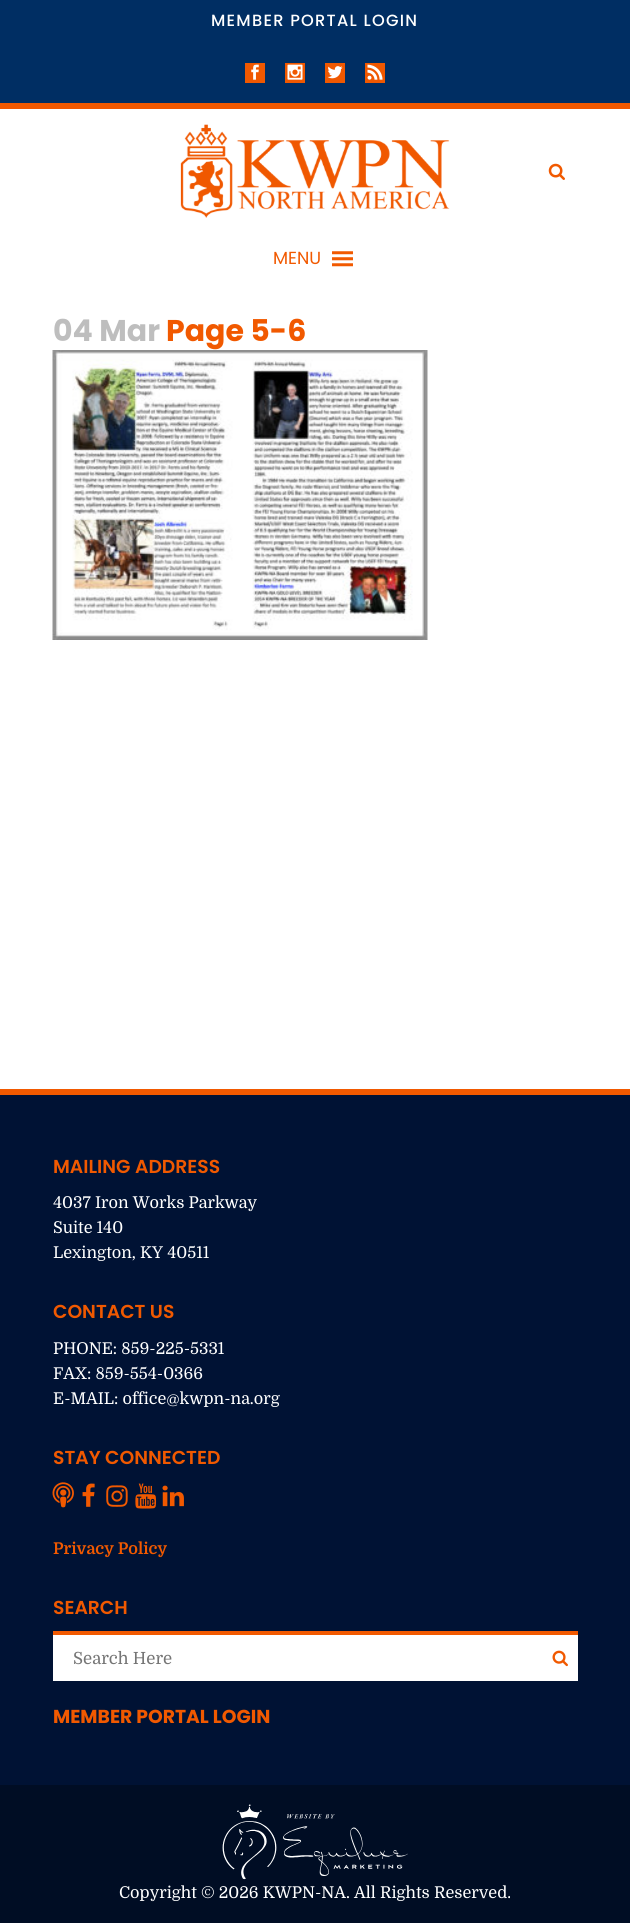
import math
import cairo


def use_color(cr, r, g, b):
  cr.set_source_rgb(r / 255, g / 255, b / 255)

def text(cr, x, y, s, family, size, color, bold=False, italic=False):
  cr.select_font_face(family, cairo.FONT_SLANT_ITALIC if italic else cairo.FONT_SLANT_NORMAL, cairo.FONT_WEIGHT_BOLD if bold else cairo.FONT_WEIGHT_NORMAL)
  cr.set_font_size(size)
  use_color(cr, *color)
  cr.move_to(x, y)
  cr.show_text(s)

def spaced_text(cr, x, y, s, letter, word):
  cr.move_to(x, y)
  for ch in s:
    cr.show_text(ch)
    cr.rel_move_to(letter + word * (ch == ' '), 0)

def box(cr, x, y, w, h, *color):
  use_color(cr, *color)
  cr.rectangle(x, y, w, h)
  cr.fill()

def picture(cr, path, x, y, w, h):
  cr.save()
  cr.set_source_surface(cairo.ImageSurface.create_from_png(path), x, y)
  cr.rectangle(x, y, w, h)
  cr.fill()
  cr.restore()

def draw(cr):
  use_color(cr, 255, 255, 255)
  cr.paint()
  box(cr, 0, 0, 630, 103, 0, 46, 99)
  box(cr, 0, 103, 630, 6, 240, 88, 0)
  box(cr, 245, 63, 20, 20, 240, 88, 0)
  picture(cr, "img_01.png", 251, 64, 8, 16)
  box(cr, 285, 63, 20, 20, 240, 88, 0)
  picture(cr, "img_02.png", 287, 64, 16, 16)
  box(cr, 325, 63, 20, 20, 240, 88, 0)
  picture(cr, "img_03.png", 327, 66, 16, 13)
  box(cr, 365, 63, 20, 20, 240, 88, 0)
  picture(cr, "img_04.png", 367, 64, 16, 16)
  picture(cr, "img_05.png", 180, 124, 270, 94)
  picture(cr, "img_06.png", 548, 163, 17, 17)
  picture(cr, "img_07.png", 332, 251, 21, 16)
  picture(cr, "img_08.png", 52, 350, 376, 290)
  box(cr, 0, 1095, 630, 690, 0, 18, 52)
  box(cr, 0, 1089, 630, 6, 241, 89, 0)
  picture(cr, "img_09.png", 52, 1482, 22, 26)
  picture(cr, "img_10.png", 82, 1483, 13, 24)
  picture(cr, "img_11.png", 106, 1485, 22, 22)
  picture(cr, "img_12.png", 135, 1483, 22, 26)
  picture(cr, "img_13.png", 162, 1485, 22, 22)
  box(cr, 53, 1635, 525, 46, 255, 255, 255)
  box(cr, 53, 1631, 525, 4, 241, 89, 0)
  picture(cr, "img_14.png", 552, 1650, 16, 17)
  box(cr, 0, 1785, 630, 138, 0, 13, 36)
  picture(cr, "img_15.png", 222, 1804, 186, 76)
  cr.select_font_face("Poppins Medium")
  cr.set_font_size(16.25)
  use_color(cr, 255, 255, 255)
  spaced_text(cr, 211, 26, "MEMBER PORTAL LOGIN", 1.25, 0)
  text(cr, 273, 264, "MENU", "Poppins", 17.5, (241, 89, 0))
  text(cr, 53, 341, "04 Mar", "Poppins", 30, (190, 190, 190), bold=True)
  text(cr, 166, 341, "Page 5-6", "Poppins", 30, (241, 89, 0), bold=True)
  text(cr, 53, 1173, "MAILING ADDRESS", "Poppins SemiBold", 18.75, (241, 89, 0))
  text(cr, 53, 1208, "4037 Iron Works Parkway", "Domine", 16.25, (255, 255, 255))
  text(cr, 53, 1233, "Suite 140", "Domine", 16.25, (255, 255, 255))
  text(cr, 53, 1258, "Lexington, KY 40511", "Domine", 16.25, (255, 255, 255))
  text(cr, 53, 1318, "CONTACT US", "Poppins SemiBold", 18.75, (241, 89, 0))
  text(cr, 53, 1354, "PHONE: 859-225-5331", "Domine", 16.25, (255, 255, 255))
  text(cr, 53, 1379, "FAX: 859-554-0366", "Domine", 16.25, (255, 255, 255))
  text(cr, 53, 1404, "E-MAIL: office@kwpn-na.org", "Domine", 16.25, (255, 255, 255))
  text(cr, 53, 1464, "STAY CONNECTED", "Poppins SemiBold", 18.75, (241, 89, 0))
  text(cr, 53, 1554, "Privacy Policy", "Domine", 16.25, (241, 89, 0), bold=True)
  text(cr, 53, 1614, "SEARCH", "Poppins SemiBold", 18.75, (241, 89, 0))
  text(cr, 73, 1664, "Search Here", "Domine", 16.75, (117, 117, 117))
  text(cr, 53, 1723, "MEMBER PORTAL LOGIN", "Poppins", 18.75, (241, 89, 0), bold=True)
  text(cr, 119, 1898, "Copyright © 2026 KWPN-NA. All Rights Reserved.", "Domine", 16.25, (255, 255, 255))


surface = cairo.ImageSurface(cairo.FORMAT_RGB24, 630, 1923)
cr = cairo.Context(surface)
options = cairo.FontOptions()
options.set_hint_metrics(cairo.HINT_METRICS_OFF)
options.set_hint_style(cairo.HINT_STYLE_NONE)
cr.set_font_options(options)
cr.set_miter_limit(4)
draw(cr)
surface.write_to_png("out.png")
